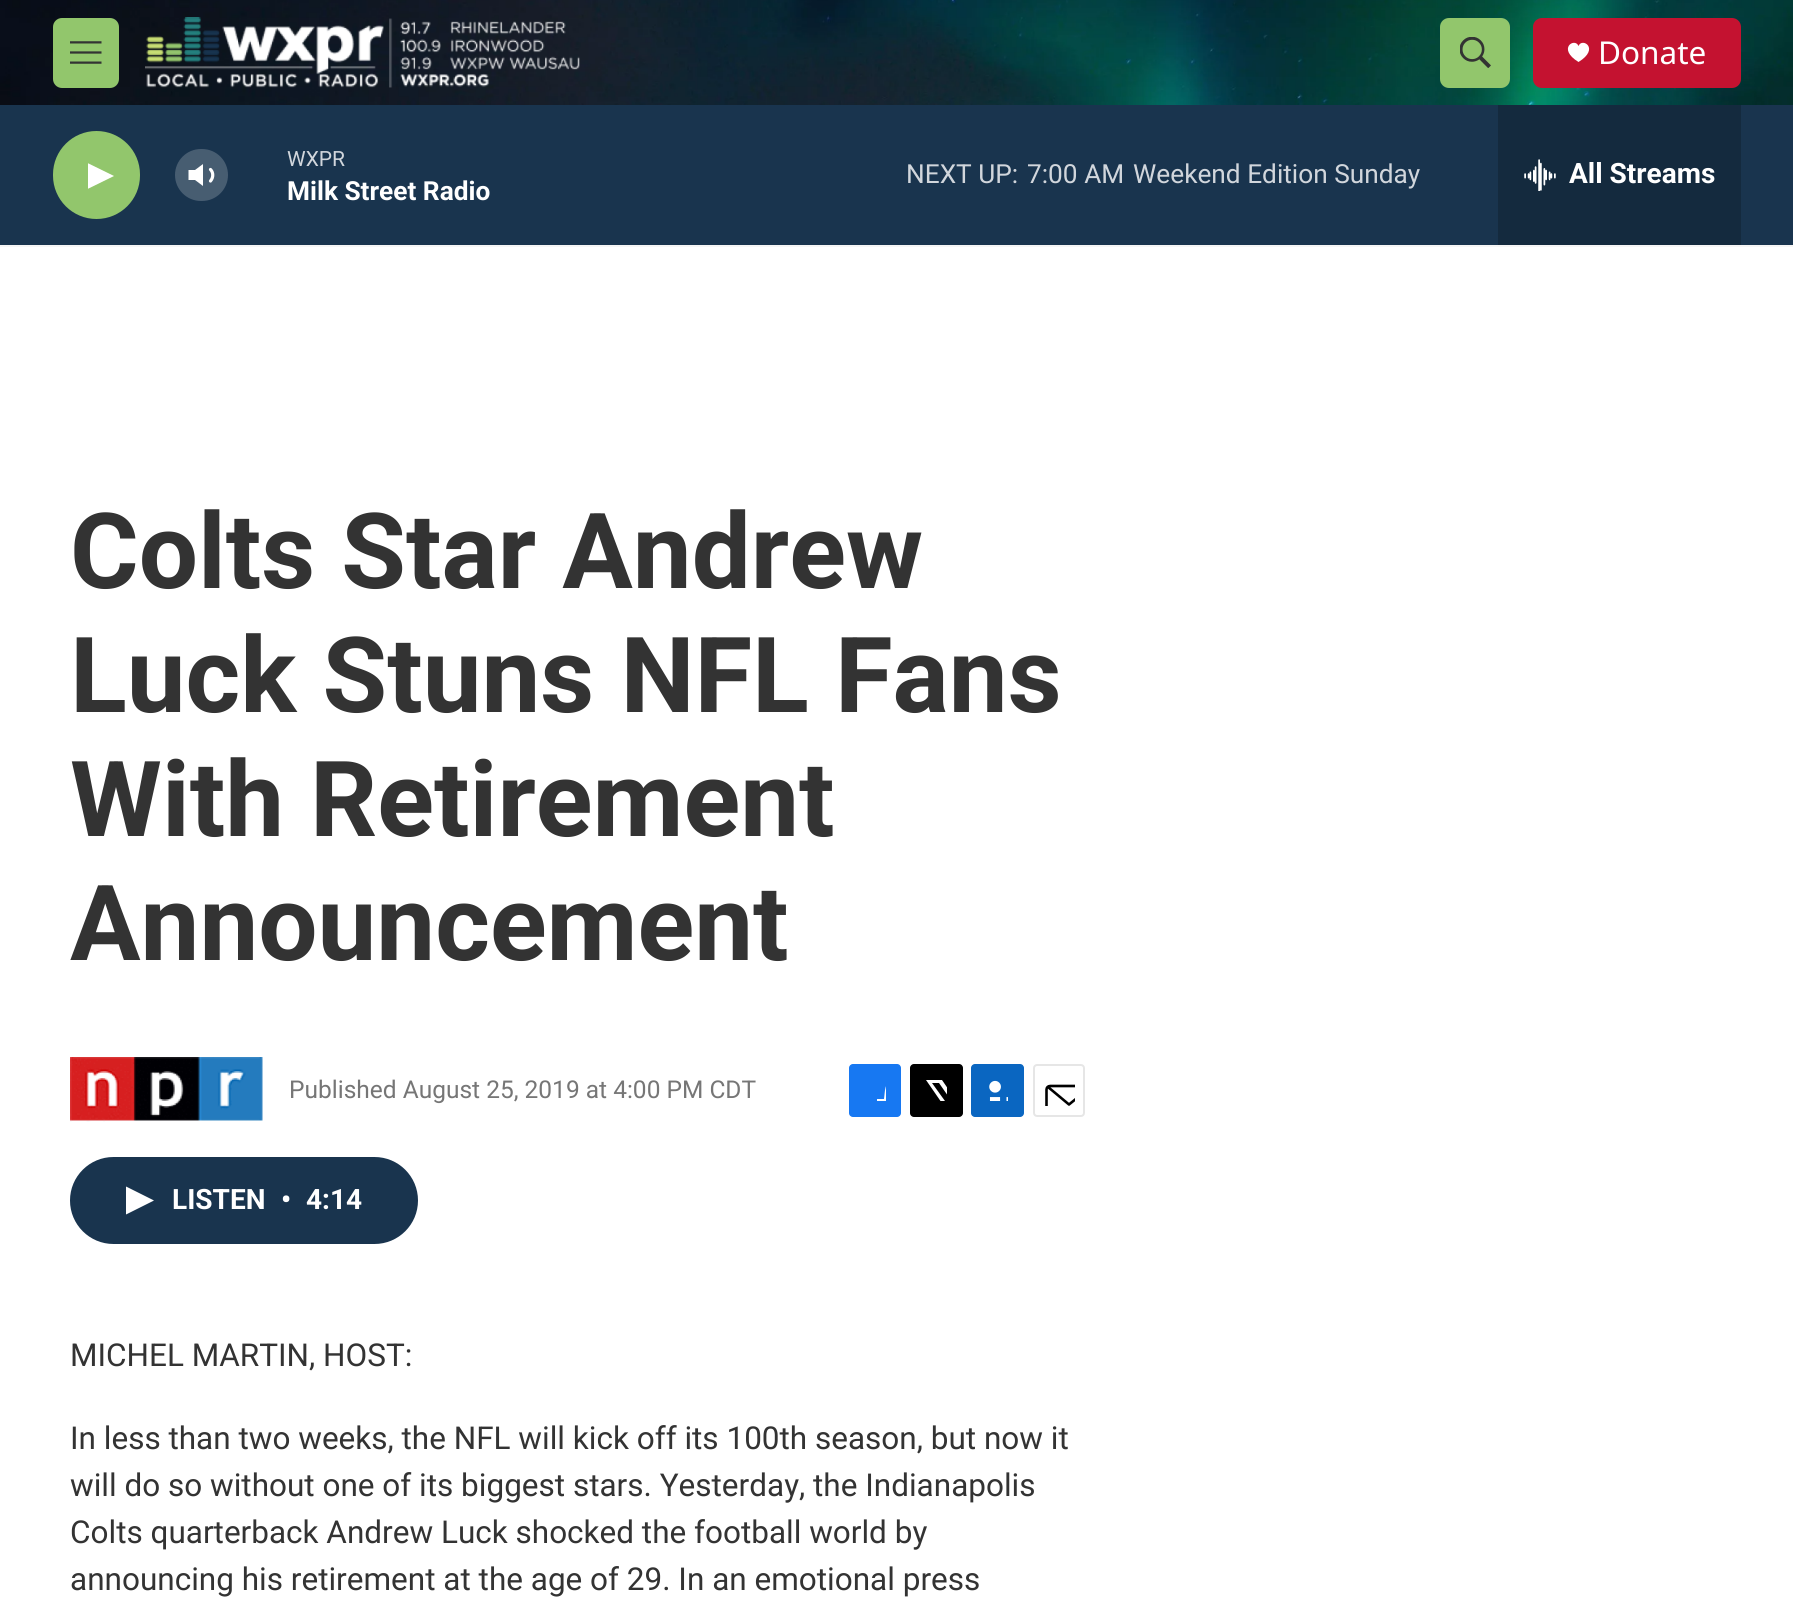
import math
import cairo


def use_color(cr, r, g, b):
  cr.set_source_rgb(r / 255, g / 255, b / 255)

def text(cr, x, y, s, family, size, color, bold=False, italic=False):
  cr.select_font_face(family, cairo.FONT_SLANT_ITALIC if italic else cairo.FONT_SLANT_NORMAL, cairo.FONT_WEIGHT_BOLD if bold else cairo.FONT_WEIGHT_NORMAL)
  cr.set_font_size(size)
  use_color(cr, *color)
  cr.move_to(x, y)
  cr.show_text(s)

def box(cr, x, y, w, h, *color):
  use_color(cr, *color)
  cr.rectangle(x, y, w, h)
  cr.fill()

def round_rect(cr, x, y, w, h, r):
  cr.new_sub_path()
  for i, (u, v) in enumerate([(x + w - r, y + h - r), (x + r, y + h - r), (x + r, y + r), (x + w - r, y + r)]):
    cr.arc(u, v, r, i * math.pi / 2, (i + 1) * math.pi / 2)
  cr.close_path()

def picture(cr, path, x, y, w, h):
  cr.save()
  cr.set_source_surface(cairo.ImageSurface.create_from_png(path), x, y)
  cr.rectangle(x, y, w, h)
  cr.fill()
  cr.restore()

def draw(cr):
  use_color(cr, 255, 255, 255)
  cr.paint()
  box(cr, 0, 245, 1793, 2, 245, 245, 245)
  picture(cr, "img_01.png", 0, 0, 1793, 105)
  use_color(cr, 146, 198, 108)
  round_rect(cr, 53, 18, 66, 70, 9)
  cr.fill()
  picture(cr, "img_02.png", 70, 41, 32, 23)
  picture(cr, "img_03.png", 145, 17, 435, 71)
  round_rect(cr, 1440, 18, 70, 70, 9)
  cr.fill()
  picture(cr, "img_04.png", 1460, 37, 31, 31)
  use_color(cr, 196, 18, 48)
  round_rect(cr, 1533, 18, 208, 70, 9)
  cr.fill()
  use_color(cr, 255, 255, 255)
  cr.new_path()
  cr.move_to(1578.5, 46)
  cr.curve_to(1575, 37, 1556.5, 48.5, 1578.5, 62)
  cr.curve_to(1600.5, 48.5, 1582, 37, 1578.5, 46)
  cr.close_path()
  cr.fill()
  box(cr, 0, 105, 1793, 140, 25, 52, 78)
  use_color(cr, 146, 198, 108)
  round_rect(cr, 53, 131, 87, 88, 43.5)
  cr.fill()
  cr.save()
  cr.rectangle(88, 159, 26, 34)
  cr.clip()
  use_color(cr, 255, 255, 255)
  cr.new_path()
  cr.move_to(87.5, 163)
  cr.line_to(114, 176)
  cr.line_to(87.5, 189)
  cr.close_path()
  cr.fill()
  cr.restore()
  use_color(cr, 255, 255, 255)
  cr.new_path()
  cr.move_to(203, 164)
  cr.line_to(195, 170)
  cr.line_to(188.5, 170)
  cr.line_to(188.5, 180)
  cr.line_to(195, 180)
  cr.line_to(203, 186)
  cr.close_path()
  cr.fill()
  cr.new_path()
  cr.move_to(210.5, 169.5)
  cr.curve_to(213.5, 172.5, 213.5, 177.5, 210.5, 181)
  cr.set_line_width(3.2)
  cr.set_line_cap(cairo.LINE_CAP_ROUND)
  cr.set_line_join(cairo.LINE_JOIN_ROUND)
  cr.stroke()
  cr.set_source_rgba(1, 1, 1, 0.2)
  round_rect(cr, 175, 149, 53, 52, 26)
  cr.fill()
  box(cr, 1498, 105, 243, 140, 20, 42, 62)
  picture(cr, "img_05.png", 1524, 159, 32, 32)
  picture(cr, "img_06.png", 70, 1057, 193, 65)
  use_color(cr, 23, 120, 242)
  round_rect(cr, 849, 1064, 52, 53, 4)
  cr.fill()
  cr.save()
  cr.rectangle(865, 1080, 21, 21)
  cr.clip()
  use_color(cr, 255, 255, 255)
  cr.new_path()
  cr.move_to(894, 1117)
  cr.line_to(884, 1117)
  cr.line_to(884, 1108)
  cr.line_to(877, 1108)
  cr.line_to(877, 1099)
  cr.line_to(884, 1099)
  cr.curve_to(885.5, 1086, 884.5, 1079, 901, 1081)
  cr.line_to(901, 1089)
  cr.curve_to(892, 1089, 894, 1091, 894, 1099)
  cr.line_to(901, 1099)
  cr.line_to(901, 1108)
  cr.line_to(894, 1108)
  cr.close_path()
  cr.fill()
  cr.restore()
  use_color(cr, 0, 0, 0)
  round_rect(cr, 910, 1064, 53, 53, 4)
  cr.fill()
  cr.save()
  cr.rectangle(926, 1080, 21, 21)
  cr.clip()
  use_color(cr, 255, 255, 255)
  cr.new_path()
  cr.move_to(957, 1102)
  cr.line_to(963, 1110.5)
  cr.curve_to(963, 1112.5, 963.5, 1114.5, 962, 1116)
  cr.line_to(939, 1083)
  cr.line_to(932, 1083)
  cr.line_to(956.5, 1117)
  cr.line_to(951.5, 1117)
  cr.line_to(948, 1112)
  cr.line_to(944, 1117)
  cr.line_to(939, 1117)
  cr.line_to(946, 1109)
  cr.line_to(926, 1080)
  cr.line_to(942, 1080)
  cr.line_to(955, 1099)
  cr.line_to(963, 1089.5)
  cr.line_to(963, 1095)
  cr.close_path()
  cr.fill()
  cr.restore()
  use_color(cr, 10, 102, 193)
  round_rect(cr, 971, 1064, 53, 53, 4)
  cr.fill()
  picture(cr, "img_07.png", 989, 1080, 19, 21)
  round_rect(cr, 1034, 1065, 50, 51, 3)
  use_color(cr, 230, 230, 230)
  cr.set_line_width(2)
  cr.set_line_cap(cairo.LINE_CAP_BUTT)
  cr.set_line_join(cairo.LINE_JOIN_MITER)
  cr.stroke()
  cr.save()
  cr.rectangle(1043, 1075, 32, 31)
  cr.clip()
  cr.new_path()
  cr.move_to(1092, 1113)
  cr.curve_to(1092, 1114.5, 1090.5, 1116, 1088.5, 1116)
  cr.line_to(1050, 1116)
  cr.curve_to(1048, 1116, 1046.5, 1114.5, 1046.5, 1113)
  cr.line_to(1046.5, 1089.5)
  cr.curve_to(1046.5, 1087.5, 1048, 1086, 1050, 1086)
  cr.line_to(1088.5, 1086)
  cr.curve_to(1090.5, 1086, 1092, 1087.5, 1092, 1089.5)
  cr.close_path()
  cr.move_to(1090.5, 1087)
  cr.line_to(1069, 1104.5)
  cr.line_to(1048, 1087)
  use_color(cr, 0, 0, 0)
  cr.set_line_width(2.6)
  cr.set_line_cap(cairo.LINE_CAP_ROUND)
  cr.set_line_join(cairo.LINE_JOIN_ROUND)
  cr.stroke()
  cr.restore()
  use_color(cr, 25, 52, 78)
  round_rect(cr, 70, 1157, 348, 87, 43.5)
  cr.fill()
  use_color(cr, 255, 255, 255)
  cr.new_path()
  cr.move_to(126, 1186.5)
  cr.line_to(154, 1200.5)
  cr.line_to(126, 1214.5)
  cr.close_path()
  cr.fill()
  text(cr, 1598, 64, "Donate", "Noto Sans", 31.5, (255, 255, 255))
  text(cr, 287, 166, "WXPR", "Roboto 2", 21, (209, 214, 220))
  text(cr, 287, 200, "Milk Street Radio", "Roboto 2", 26.25, (255, 255, 255), bold=True)
  text(cr, 906, 183, "NEXT UP:", "Roboto 2", 26.25, (209, 214, 220))
  text(cr, 1027, 183, "7:00 AM", "Roboto 2", 26.25, (209, 214, 220))
  text(cr, 1133, 183, "Weekend Edition Sunday", "Roboto 2", 26.25, (209, 214, 220))
  text(cr, 1569, 183, "All Streams", "Roboto 2", 28, (255, 255, 255), bold=True)
  text(cr, 70, 588, "Colts Star Andrew", "Roboto", 105, (51, 51, 51), bold=True)
  text(cr, 70, 712, "Luck Stuns NFL Fans", "Roboto", 105, (51, 51, 51), bold=True)
  text(cr, 70, 836, "With Retirement", "Roboto", 105, (51, 51, 51), bold=True)
  text(cr, 70, 960, "Announcement", "Roboto", 105, (51, 51, 51), bold=True)
  text(cr, 289, 1098, "Published August 25, 2019 at 4:00 PM CDT", "Roboto", 24.5, (118, 118, 118))
  text(cr, 172, 1209, "LISTEN", "Roboto 2", 28, (255, 255, 255), bold=True)
  text(cr, 281, 1209, "•", "Roboto 2", 28, (255, 255, 255), bold=True)
  text(cr, 306, 1209, "4:14", "Roboto 2", 28, (255, 255, 255), bold=True)
  text(cr, 70, 1366, "MICHEL MARTIN, HOST:", "Roboto 2", 31.5, (51, 51, 51))
  text(cr, 70, 1449, "In less than two weeks, the NFL will kick off its 100th season, but now it", "Roboto 2", 31.5, (51, 51, 51))
  text(cr, 70, 1496, "will do so without one of its biggest stars. Yesterday, the Indianapolis", "Roboto 2", 31.5, (51, 51, 51))
  text(cr, 70, 1543, "Colts quarterback Andrew Luck shocked the football world by", "Roboto 2", 31.5, (51, 51, 51))
  text(cr, 70, 1590, "announcing his retirement at the age of 29. In an emotional press", "Roboto 2", 31.5, (51, 51, 51))


surface = cairo.ImageSurface(cairo.FORMAT_RGB24, 1793, 1620)
cr = cairo.Context(surface)
options = cairo.FontOptions()
options.set_hint_metrics(cairo.HINT_METRICS_OFF)
options.set_hint_style(cairo.HINT_STYLE_NONE)
cr.set_font_options(options)
cr.set_miter_limit(4)
draw(cr)
surface.write_to_png("out.png")
